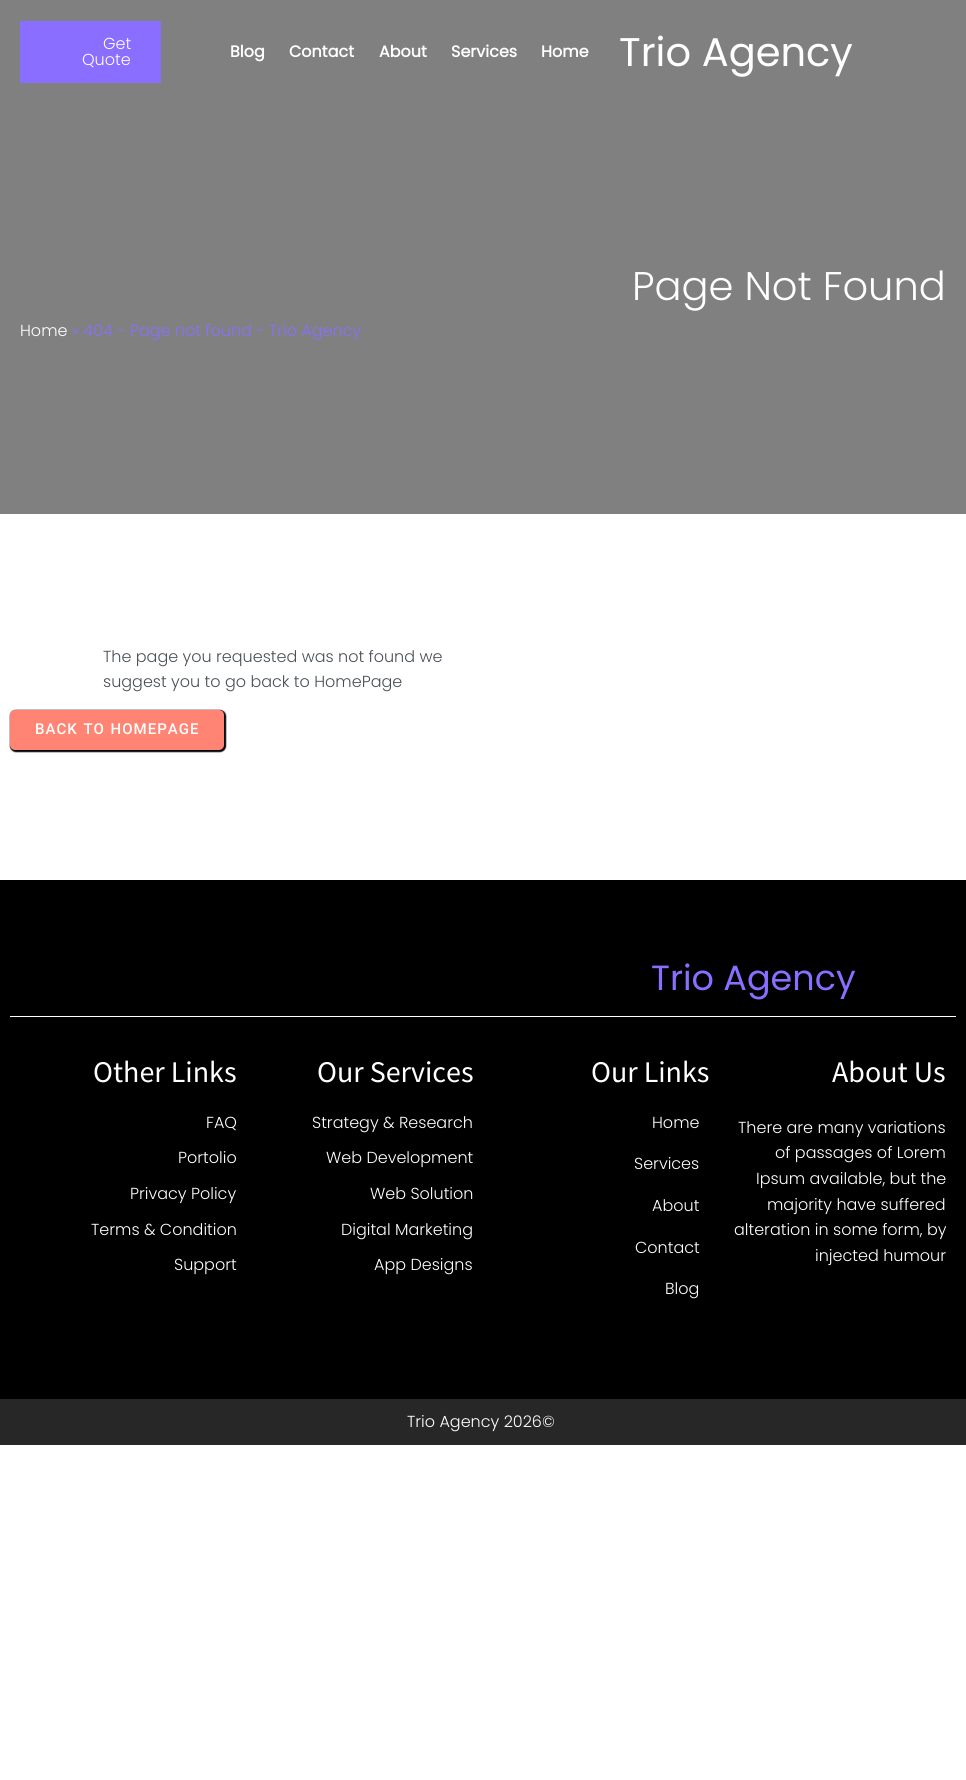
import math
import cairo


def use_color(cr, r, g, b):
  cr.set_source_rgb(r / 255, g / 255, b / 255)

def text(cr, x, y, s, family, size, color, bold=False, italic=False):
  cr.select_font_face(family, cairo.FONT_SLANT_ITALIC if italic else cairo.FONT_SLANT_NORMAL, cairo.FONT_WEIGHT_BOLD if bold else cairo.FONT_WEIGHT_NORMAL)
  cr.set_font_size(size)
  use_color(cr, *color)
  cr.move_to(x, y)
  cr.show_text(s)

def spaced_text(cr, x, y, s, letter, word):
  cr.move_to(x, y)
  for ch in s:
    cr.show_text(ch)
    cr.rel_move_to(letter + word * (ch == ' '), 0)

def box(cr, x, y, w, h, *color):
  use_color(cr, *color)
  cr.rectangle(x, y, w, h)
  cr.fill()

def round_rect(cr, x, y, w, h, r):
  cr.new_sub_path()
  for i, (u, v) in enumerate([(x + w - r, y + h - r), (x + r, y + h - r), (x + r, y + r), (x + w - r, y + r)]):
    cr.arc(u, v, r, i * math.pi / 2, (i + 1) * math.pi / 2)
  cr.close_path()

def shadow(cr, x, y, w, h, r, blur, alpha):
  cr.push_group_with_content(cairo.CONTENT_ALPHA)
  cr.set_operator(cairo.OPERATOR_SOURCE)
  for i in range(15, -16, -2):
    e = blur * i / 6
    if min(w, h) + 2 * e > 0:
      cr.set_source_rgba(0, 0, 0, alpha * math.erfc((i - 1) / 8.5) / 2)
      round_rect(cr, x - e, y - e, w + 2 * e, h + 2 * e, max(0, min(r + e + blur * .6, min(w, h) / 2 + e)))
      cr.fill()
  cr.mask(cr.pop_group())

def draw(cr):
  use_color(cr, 255, 255, 255)
  cr.paint()
  box(cr, 0, 0, 966, 514, 128, 128, 128)
  use_color(cr, 137, 110, 255)
  round_rect(cr, 20, 21, 141, 62, 1)
  cr.fill()
  use_color(cr, 0, 0, 0)
  shadow(cr, 10, 710, 216, 42, 6, 0.5, 1)
  use_color(cr, 255, 132, 116)
  round_rect(cr, 10, 710, 214, 40, 5)
  cr.fill()
  box(cr, 0, 880, 966, 519, 0, 0, 0)
  box(cr, 10, 1016, 946, 1, 255, 255, 255)
  box(cr, 0, 1399, 966, 46, 39, 39, 39)
  text(cr, 103, 49, "Get", "Poppins Light", 16, (255, 255, 255))
  text(cr, 82, 65, "Quote", "Poppins Light", 16, (255, 255, 255))
  text(cr, 230, 57, "Blog", "Poppins", 16, (255, 255, 255), bold=True)
  text(cr, 289, 57, "Contact", "Poppins", 16, (255, 255, 255), bold=True)
  text(cr, 379, 57, "About", "Poppins", 16, (255, 255, 255), bold=True)
  text(cr, 451, 57, "Services", "Poppins", 16, (255, 255, 255), bold=True)
  text(cr, 541, 57, "Home", "Poppins", 16, (255, 255, 255), bold=True)
  text(cr, 619, 66, "Trio Agency", "Poppins", 40, (255, 255, 255))
  text(cr, 632, 300, "Page Not Found", "Poppins Light", 40, (255, 255, 255))
  text(cr, 20, 336, "Home", "Poppins Light", 16, (255, 255, 255))
  text(cr, 72, 336, "» 404 - Page not found - Trio Agency", "Poppins Light", 16, (137, 110, 255))
  text(cr, 103, 662, "The page you requested was not found we", "Poppins Light", 16, (73, 80, 87))
  text(cr, 103, 687, "suggest you to go back to HomePage", "Poppins Light", 16, (73, 80, 87))
  cr.select_font_face("Roboto Medium")
  cr.set_font_size(15)
  use_color(cr, 255, 255, 255)
  spaced_text(cr, 35, 734, "BACK TO HOMEPAGE", 1, 1)
  text(cr, 651, 990, "Trio Agency", "Poppins", 35, (137, 110, 255))
  text(cr, 93, 1082, "Other Links", "Source Sans Pro", 30, (255, 255, 255))
  text(cr, 206, 1128, "FAQ", "Poppins Light", 16, (255, 255, 255))
  text(cr, 178, 1163, "Portolio", "Poppins Light", 16, (255, 255, 255))
  text(cr, 130, 1199, "Privacy Policy", "Poppins Light", 16, (255, 255, 255))
  text(cr, 91, 1235, "Terms & Condition", "Poppins Light", 16, (255, 255, 255))
  text(cr, 174, 1270, "Support", "Poppins Light", 16, (255, 255, 255))
  text(cr, 317, 1082, "Our Services", "Source Sans Pro", 30, (255, 255, 255))
  text(cr, 312, 1128, "Strategy & Research", "Poppins Light", 16, (255, 255, 255))
  text(cr, 326, 1163, "Web Development", "Poppins Light", 16, (255, 255, 255))
  text(cr, 370, 1199, "Web Solution", "Poppins Light", 16, (255, 255, 255))
  text(cr, 341, 1235, "Digital Marketing", "Poppins Light", 16, (255, 255, 255))
  text(cr, 374, 1270, "App Designs", "Poppins Light", 16, (255, 255, 255))
  text(cr, 591, 1082, "Our Links", "Source Sans Pro", 30, (255, 255, 255))
  text(cr, 652, 1128, "Home", "Poppins Light", 16, (255, 255, 255))
  text(cr, 634, 1169, "Services", "Poppins Light", 16, (255, 255, 255))
  text(cr, 652, 1211, "About", "Poppins Light", 16, (255, 255, 255))
  text(cr, 635, 1253, "Contact", "Poppins Light", 16, (255, 255, 255))
  text(cr, 665, 1294, "Blog", "Poppins Light", 16, (255, 255, 255))
  text(cr, 832, 1082, "About Us", "Source Sans Pro", 30, (255, 255, 255))
  text(cr, 738, 1133, "There are many variations", "Poppins Light", 16, (255, 255, 255))
  text(cr, 775, 1158, "of passages of Lorem", "Poppins Light", 16, (255, 255, 255))
  text(cr, 756, 1184, "Ipsum available, but the", "Poppins Light", 16, (255, 255, 255))
  text(cr, 767, 1210, "majority have suffered", "Poppins Light", 16, (255, 255, 255))
  text(cr, 734, 1235, "alteration in some form, by", "Poppins Light", 16, (255, 255, 255))
  text(cr, 815, 1261, "injected humour", "Poppins Light", 16, (255, 255, 255))
  text(cr, 407, 1427, "Trio Agency 2026©", "Poppins Light", 16, (255, 255, 255))


surface = cairo.ImageSurface(cairo.FORMAT_RGB24, 966, 1780)
cr = cairo.Context(surface)
options = cairo.FontOptions()
options.set_hint_metrics(cairo.HINT_METRICS_OFF)
options.set_hint_style(cairo.HINT_STYLE_NONE)
cr.set_font_options(options)
cr.set_miter_limit(4)
draw(cr)
surface.write_to_png("out.png")
